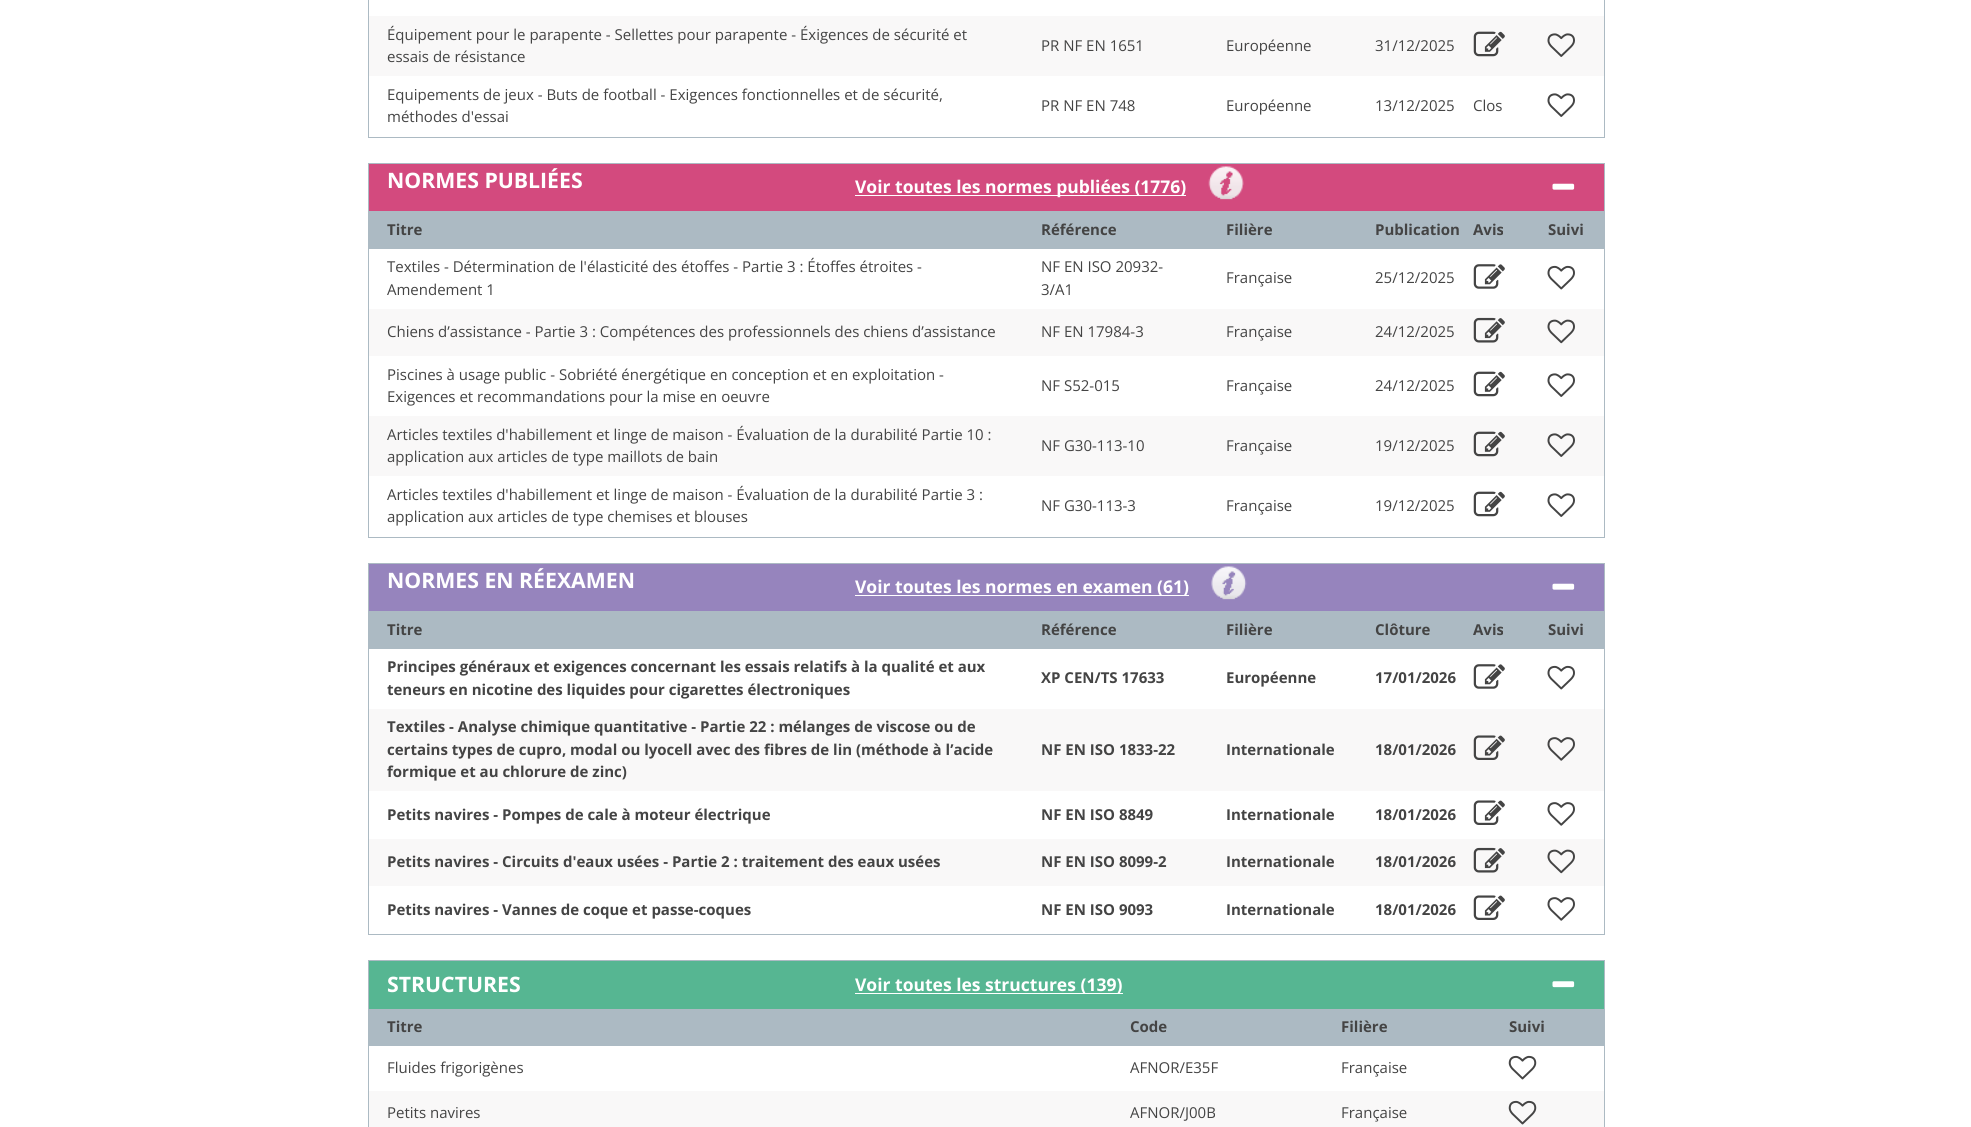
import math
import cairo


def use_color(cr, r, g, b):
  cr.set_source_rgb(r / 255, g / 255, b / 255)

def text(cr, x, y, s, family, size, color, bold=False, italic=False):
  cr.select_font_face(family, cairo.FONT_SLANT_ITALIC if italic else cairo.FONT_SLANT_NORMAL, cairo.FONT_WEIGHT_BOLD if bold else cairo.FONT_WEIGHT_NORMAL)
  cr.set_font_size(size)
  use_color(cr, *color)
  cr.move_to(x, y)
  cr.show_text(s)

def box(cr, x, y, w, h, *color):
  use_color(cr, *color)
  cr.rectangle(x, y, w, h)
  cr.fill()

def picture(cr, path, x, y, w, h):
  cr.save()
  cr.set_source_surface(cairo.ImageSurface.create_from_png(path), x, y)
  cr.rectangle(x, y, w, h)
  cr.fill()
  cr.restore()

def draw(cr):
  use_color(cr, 255, 255, 255)
  cr.paint()
  cr.rectangle(368.5, -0.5, 1236, 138)
  use_color(cr, 172, 186, 195)
  cr.set_line_width(1)
  cr.stroke()
  box(cr, 369, 16, 1235, 60, 249, 248, 248)
  picture(cr, "img_01.png", 1473, 31, 32, 26)
  picture(cr, "img_02.png", 1547, 33, 28, 24)
  picture(cr, "img_03.png", 1547, 93, 28, 24)
  cr.rectangle(368.5, 163.5, 1236, 374)
  use_color(cr, 172, 186, 195)
  cr.stroke()
  box(cr, 369, 164, 1235, 47, 211, 74, 126)
  box(cr, 855, 195, 331, 1, 255, 255, 255)
  picture(cr, "img_04.png", 1208, 166, 36, 34)
  picture(cr, "img_05.png", 1552, 183, 23, 7)
  box(cr, 369, 211, 1235, 38, 172, 186, 195)
  picture(cr, "img_06.png", 1473, 264, 32, 25)
  picture(cr, "img_07.png", 1547, 265, 28, 25)
  box(cr, 369, 309, 1235, 47, 249, 248, 248)
  picture(cr, "img_08.png", 1473, 317, 32, 26)
  picture(cr, "img_09.png", 1547, 319, 28, 25)
  picture(cr, "img_10.png", 1473, 371, 32, 26)
  picture(cr, "img_03.png", 1547, 373, 28, 24)
  box(cr, 369, 416, 1235, 60, 249, 248, 248)
  picture(cr, "img_01.png", 1473, 431, 32, 26)
  picture(cr, "img_02.png", 1547, 433, 28, 24)
  picture(cr, "img_10.png", 1473, 491, 32, 26)
  picture(cr, "img_03.png", 1547, 493, 28, 24)
  cr.rectangle(368.5, 563.5, 1236, 371)
  use_color(cr, 172, 186, 195)
  cr.stroke()
  box(cr, 369, 564, 1235, 47, 150, 132, 189)
  box(cr, 855, 595, 334, 1, 255, 255, 255)
  picture(cr, "img_11.png", 1211, 566, 36, 34)
  picture(cr, "img_12.png", 1552, 583, 23, 7)
  box(cr, 369, 611, 1235, 38, 172, 186, 195)
  picture(cr, "img_06.png", 1473, 664, 32, 25)
  picture(cr, "img_07.png", 1547, 665, 28, 25)
  box(cr, 369, 709, 1235, 82, 249, 248, 248)
  picture(cr, "img_13.png", 1473, 735, 32, 25)
  picture(cr, "img_14.png", 1547, 737, 28, 24)
  picture(cr, "img_15.png", 1473, 800, 32, 25)
  picture(cr, "img_16.png", 1547, 802, 28, 24)
  box(cr, 369, 839, 1235, 47, 249, 248, 248)
  picture(cr, "img_08.png", 1473, 847, 32, 26)
  picture(cr, "img_09.png", 1547, 849, 28, 25)
  picture(cr, "img_15.png", 1473, 895, 32, 25)
  picture(cr, "img_16.png", 1547, 897, 28, 24)
  cr.rectangle(368.5, 960.5, 1236, 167)
  use_color(cr, 172, 186, 195)
  cr.stroke()
  box(cr, 369, 961, 1235, 48, 86, 182, 146)
  box(cr, 855, 993, 268, 1, 255, 255, 255)
  picture(cr, "img_17.png", 1552, 981, 23, 7)
  box(cr, 369, 1009, 1235, 37, 172, 186, 195)
  picture(cr, "img_18.png", 1508, 1055, 29, 25)
  box(cr, 369, 1091, 1235, 36, 249, 248, 248)
  picture(cr, "img_19.png", 1508, 1100, 29, 25)
  text(cr, 387, 40, "Équipement pour le parapente - Sellettes pour parapente - Éxigences de sécurité et", "Open Sans", 15, (68, 68, 68))
  text(cr, 387, 62, "essais de résistance", "Open Sans", 15, (68, 68, 68))
  text(cr, 1041, 51, "PR NF EN 1651", "Open Sans", 15, (68, 68, 68))
  text(cr, 1226, 51, "Européenne", "Open Sans", 15, (68, 68, 68))
  text(cr, 1375, 51, "31/12/2025", "Open Sans", 15, (68, 68, 68))
  text(cr, 387, 100, "Equipements de jeux - Buts de football - Exigences fonctionnelles et de sécurité,", "Open Sans", 15, (68, 68, 68))
  text(cr, 387, 122, "méthodes d'essai", "Open Sans", 15, (68, 68, 68))
  text(cr, 1041, 111, "PR NF EN 748", "Open Sans", 15, (68, 68, 68))
  text(cr, 1226, 111, "Européenne", "Open Sans", 15, (68, 68, 68))
  text(cr, 1375, 111, "13/12/2025", "Open Sans", 15, (68, 68, 68))
  text(cr, 1473, 111, "Clos", "Open Sans", 15, (68, 68, 68))
  text(cr, 387, 188, "NORMES PUBLIÉES", "Open Sans", 21.25, (255, 255, 255), bold=True)
  text(cr, 855, 193, "Voir toutes les normes publiées (1776)", "Open Sans", 17.5, (255, 255, 255), bold=True)
  text(cr, 387, 235, "Titre", "Open Sans", 15, (68, 68, 68), bold=True)
  text(cr, 1041, 235, "Référence", "Open Sans", 15, (68, 68, 68), bold=True)
  text(cr, 1226, 235, "Filière", "Open Sans", 15, (68, 68, 68), bold=True)
  text(cr, 1375, 235, "Publication", "Open Sans", 15, (68, 68, 68), bold=True)
  text(cr, 1473, 235, "Avis", "Open Sans", 15, (68, 68, 68), bold=True)
  text(cr, 1548, 235, "Suivi", "Open Sans", 15, (68, 68, 68), bold=True)
  text(cr, 387, 272, "Textiles - Détermination de l'élasticité des étoffes - Partie 3 : Étoffes étroites -", "Open Sans", 15, (68, 68, 68))
  text(cr, 387, 295, "Amendement 1", "Open Sans", 15, (68, 68, 68))
  text(cr, 1041, 272, "NF EN ISO 20932-", "Open Sans", 15, (68, 68, 68))
  text(cr, 1041, 295, "3/A1", "Open Sans", 15, (68, 68, 68))
  text(cr, 1226, 283, "Française", "Open Sans", 15, (68, 68, 68))
  text(cr, 1375, 283, "25/12/2025", "Open Sans", 15, (68, 68, 68))
  text(cr, 387, 337, "Chiens d’assistance - Partie 3 : Compétences des professionnels des chiens d’assistance", "Open Sans", 15, (68, 68, 68))
  text(cr, 1041, 337, "NF EN 17984-3", "Open Sans", 15, (68, 68, 68))
  text(cr, 1226, 337, "Française", "Open Sans", 15, (68, 68, 68))
  text(cr, 1375, 337, "24/12/2025", "Open Sans", 15, (68, 68, 68))
  text(cr, 387, 380, "Piscines à usage public - Sobriété énergétique en conception et en exploitation -", "Open Sans", 15, (68, 68, 68))
  text(cr, 387, 402, "Exigences et recommandations pour la mise en oeuvre", "Open Sans", 15, (68, 68, 68))
  text(cr, 1041, 391, "NF S52-015", "Open Sans", 15, (68, 68, 68))
  text(cr, 1226, 391, "Française", "Open Sans", 15, (68, 68, 68))
  text(cr, 1375, 391, "24/12/2025", "Open Sans", 15, (68, 68, 68))
  text(cr, 387, 440, "Articles textiles d'habillement et linge de maison - Évaluation de la durabilité Partie 10 :", "Open Sans", 15, (68, 68, 68))
  text(cr, 387, 462, "application aux articles de type maillots de bain", "Open Sans", 15, (68, 68, 68))
  text(cr, 1041, 451, "NF G30-113-10", "Open Sans", 15, (68, 68, 68))
  text(cr, 1226, 451, "Française", "Open Sans", 15, (68, 68, 68))
  text(cr, 1375, 451, "19/12/2025", "Open Sans", 15, (68, 68, 68))
  text(cr, 387, 500, "Articles textiles d'habillement et linge de maison - Évaluation de la durabilité Partie 3 :", "Open Sans", 15, (68, 68, 68))
  text(cr, 387, 522, "application aux articles de type chemises et blouses", "Open Sans", 15, (68, 68, 68))
  text(cr, 1041, 511, "NF G30-113-3", "Open Sans", 15, (68, 68, 68))
  text(cr, 1226, 511, "Française", "Open Sans", 15, (68, 68, 68))
  text(cr, 1375, 511, "19/12/2025", "Open Sans", 15, (68, 68, 68))
  text(cr, 387, 588, "NORMES EN RÉEXAMEN", "Open Sans", 21.25, (255, 255, 255), bold=True)
  text(cr, 855, 593, "Voir toutes les normes en examen (61)", "Open Sans", 17.5, (255, 255, 255), bold=True)
  text(cr, 387, 635, "Titre", "Open Sans", 15, (68, 68, 68), bold=True)
  text(cr, 1041, 635, "Référence", "Open Sans", 15, (68, 68, 68), bold=True)
  text(cr, 1226, 635, "Filière", "Open Sans", 15, (68, 68, 68), bold=True)
  text(cr, 1375, 635, "Clôture", "Open Sans", 15, (68, 68, 68), bold=True)
  text(cr, 1473, 635, "Avis", "Open Sans", 15, (68, 68, 68), bold=True)
  text(cr, 1548, 635, "Suivi", "Open Sans", 15, (68, 68, 68), bold=True)
  text(cr, 387, 672, "Principes généraux et exigences concernant les essais relatifs à la qualité et aux", "Open Sans", 15, (68, 68, 68), bold=True)
  text(cr, 387, 695, "teneurs en nicotine des liquides pour cigarettes électroniques", "Open Sans", 15, (68, 68, 68), bold=True)
  text(cr, 1041, 683, "XP CEN/TS 17633", "Open Sans", 15, (68, 68, 68), bold=True)
  text(cr, 1226, 683, "Européenne", "Open Sans", 15, (68, 68, 68), bold=True)
  text(cr, 1375, 683, "17/01/2026", "Open Sans", 15, (68, 68, 68), bold=True)
  text(cr, 387, 732, "Textiles - Analyse chimique quantitative - Partie 22 : mélanges de viscose ou de", "Open Sans", 15, (68, 68, 68), bold=True)
  text(cr, 387, 755, "certains types de cupro, modal ou lyocell avec des fibres de lin (méthode à l’acide", "Open Sans", 15, (68, 68, 68), bold=True)
  text(cr, 387, 777, "formique et au chlorure de zinc)", "Open Sans", 15, (68, 68, 68), bold=True)
  text(cr, 1041, 755, "NF EN ISO 1833-22", "Open Sans", 15, (68, 68, 68), bold=True)
  text(cr, 1226, 755, "Internationale", "Open Sans", 15, (68, 68, 68), bold=True)
  text(cr, 1375, 755, "18/01/2026", "Open Sans", 15, (68, 68, 68), bold=True)
  text(cr, 387, 820, "Petits navires - Pompes de cale à moteur électrique", "Open Sans", 15, (68, 68, 68), bold=True)
  text(cr, 1041, 820, "NF EN ISO 8849", "Open Sans", 15, (68, 68, 68), bold=True)
  text(cr, 1226, 820, "Internationale", "Open Sans", 15, (68, 68, 68), bold=True)
  text(cr, 1375, 820, "18/01/2026", "Open Sans", 15, (68, 68, 68), bold=True)
  text(cr, 387, 867, "Petits navires - Circuits d'eaux usées - Partie 2 : traitement des eaux usées", "Open Sans", 15, (68, 68, 68), bold=True)
  text(cr, 1041, 867, "NF EN ISO 8099-2", "Open Sans", 15, (68, 68, 68), bold=True)
  text(cr, 1226, 867, "Internationale", "Open Sans", 15, (68, 68, 68), bold=True)
  text(cr, 1375, 867, "18/01/2026", "Open Sans", 15, (68, 68, 68), bold=True)
  text(cr, 387, 915, "Petits navires - Vannes de coque et passe-coques", "Open Sans", 15, (68, 68, 68), bold=True)
  text(cr, 1041, 915, "NF EN ISO 9093", "Open Sans", 15, (68, 68, 68), bold=True)
  text(cr, 1226, 915, "Internationale", "Open Sans", 15, (68, 68, 68), bold=True)
  text(cr, 1375, 915, "18/01/2026", "Open Sans", 15, (68, 68, 68), bold=True)
  text(cr, 387, 992, "STRUCTURES", "Open Sans", 21.25, (255, 255, 255), bold=True)
  text(cr, 855, 991, "Voir toutes les structures (139)", "Open Sans", 17.5, (255, 255, 255), bold=True)
  text(cr, 387, 1032, "Titre", "Open Sans", 15, (68, 68, 68), bold=True)
  text(cr, 1130, 1032, "Code", "Open Sans", 15, (68, 68, 68), bold=True)
  text(cr, 1341, 1032, "Filière", "Open Sans", 15, (68, 68, 68), bold=True)
  text(cr, 1509, 1032, "Suivi", "Open Sans", 15, (68, 68, 68), bold=True)
  text(cr, 387, 1073, "Fluides frigorigènes", "Open Sans", 15, (68, 68, 68))
  text(cr, 1130, 1073, "AFNOR/E35F", "Open Sans", 15, (68, 68, 68))
  text(cr, 1341, 1073, "Française", "Open Sans", 15, (68, 68, 68))
  text(cr, 387, 1118, "Petits navires", "Open Sans", 15, (68, 68, 68))
  text(cr, 1130, 1118, "AFNOR/J00B", "Open Sans", 15, (68, 68, 68))
  text(cr, 1341, 1118, "Française", "Open Sans", 15, (68, 68, 68))


surface = cairo.ImageSurface(cairo.FORMAT_RGB24, 1971, 1127)
cr = cairo.Context(surface)
options = cairo.FontOptions()
options.set_hint_metrics(cairo.HINT_METRICS_OFF)
options.set_hint_style(cairo.HINT_STYLE_NONE)
cr.set_font_options(options)
cr.set_miter_limit(4)
draw(cr)
surface.write_to_png("out.png")
